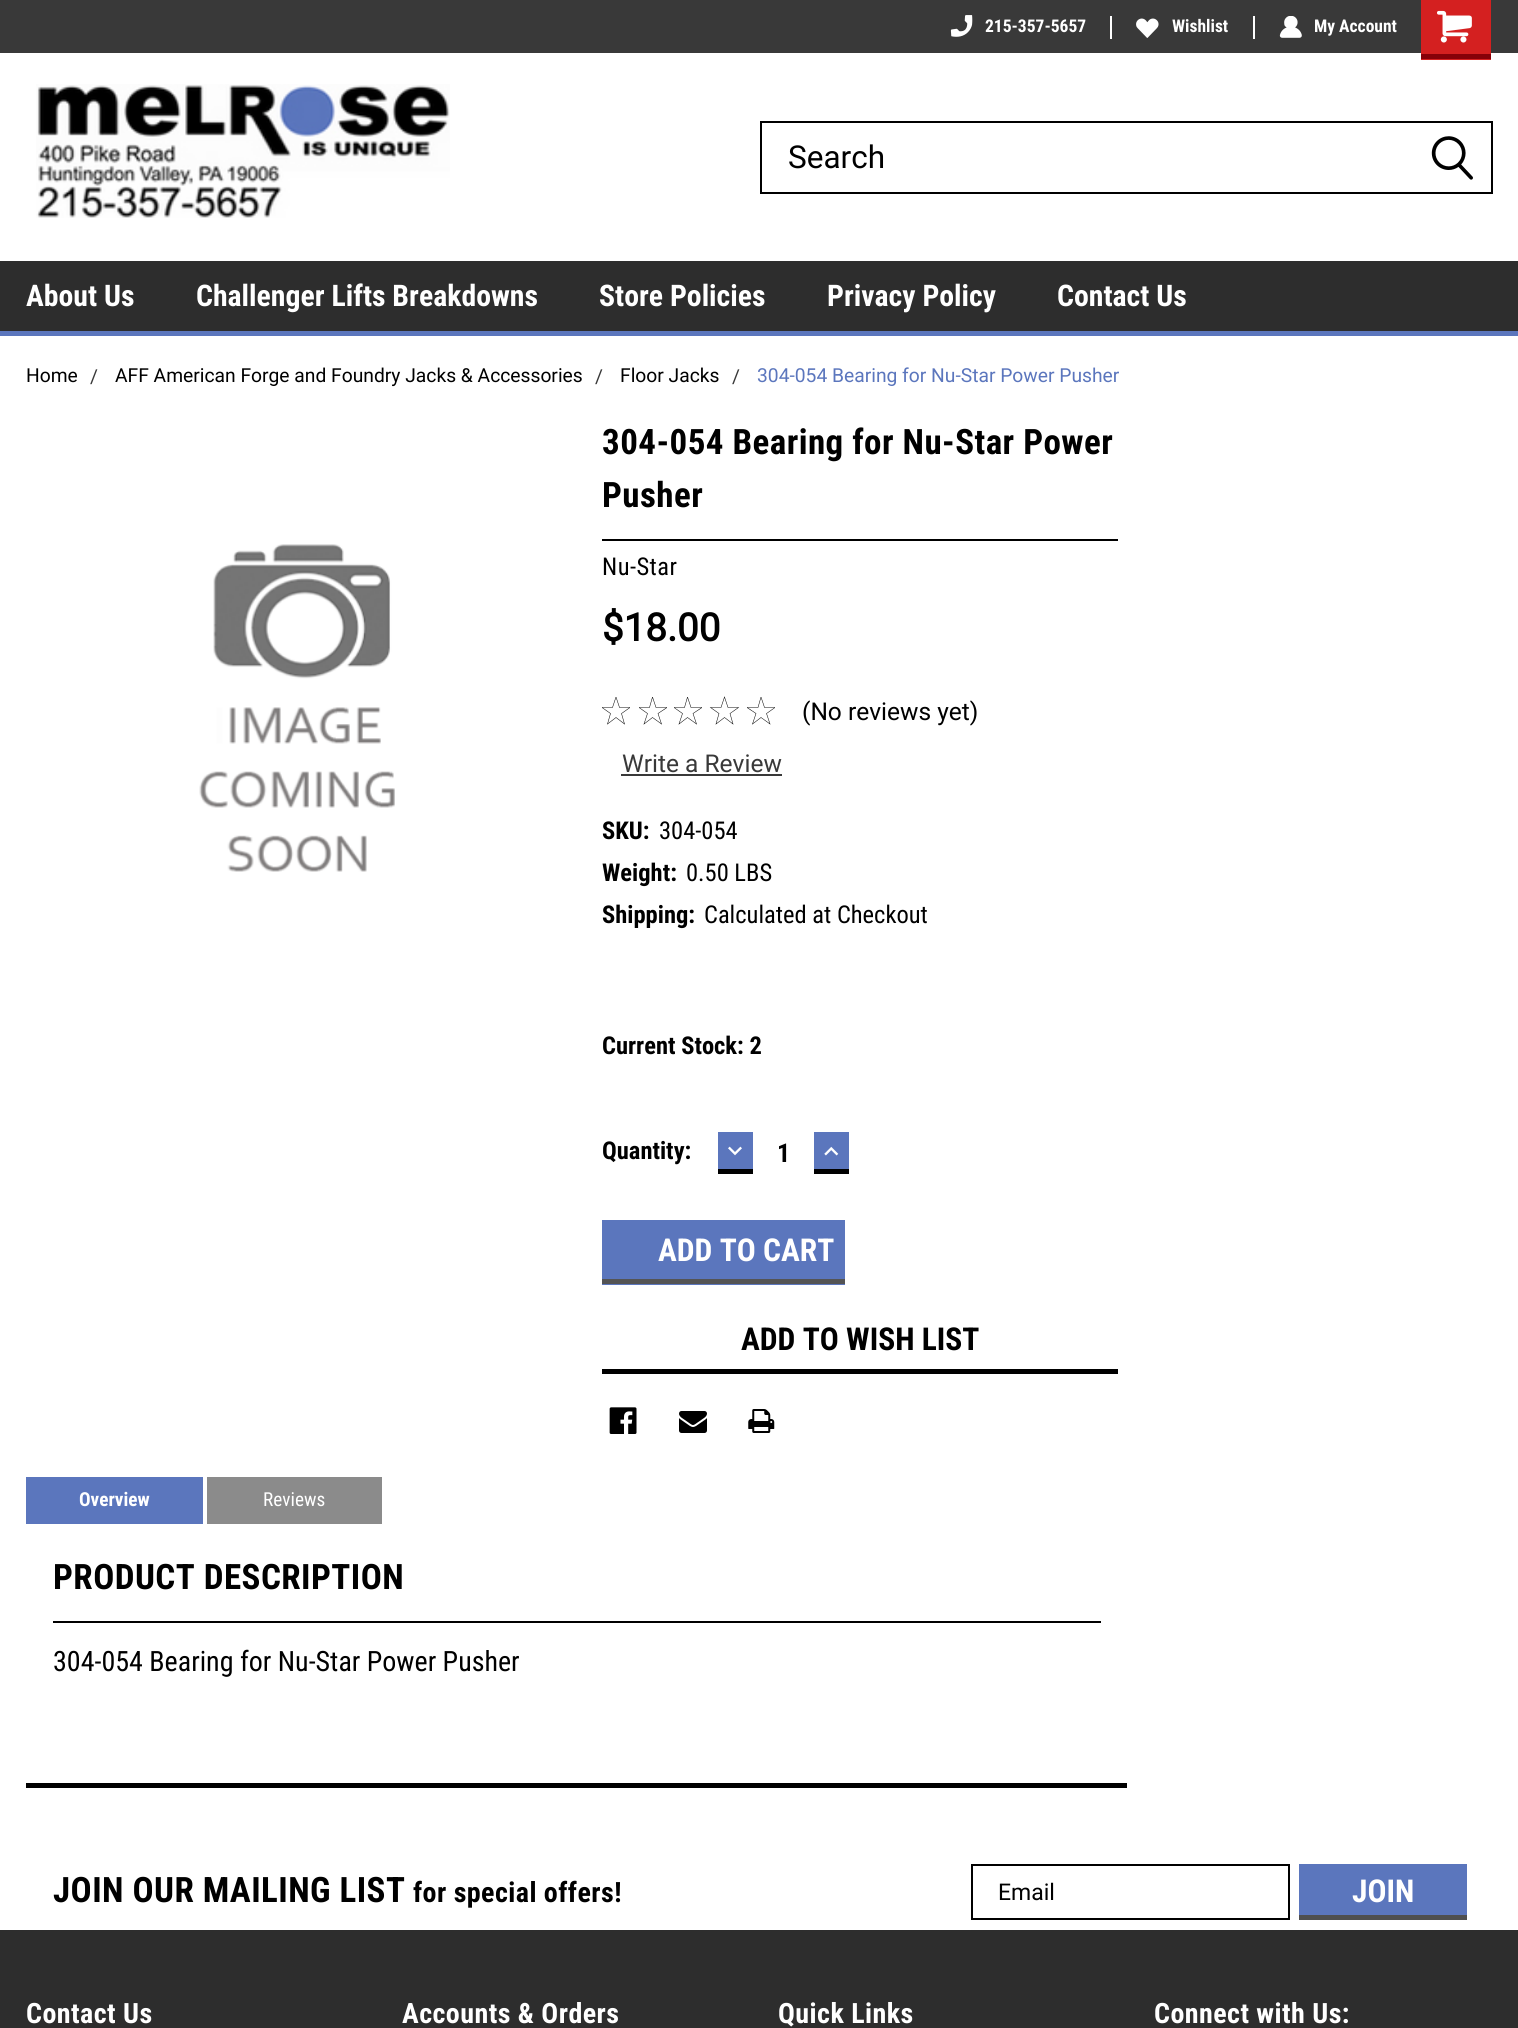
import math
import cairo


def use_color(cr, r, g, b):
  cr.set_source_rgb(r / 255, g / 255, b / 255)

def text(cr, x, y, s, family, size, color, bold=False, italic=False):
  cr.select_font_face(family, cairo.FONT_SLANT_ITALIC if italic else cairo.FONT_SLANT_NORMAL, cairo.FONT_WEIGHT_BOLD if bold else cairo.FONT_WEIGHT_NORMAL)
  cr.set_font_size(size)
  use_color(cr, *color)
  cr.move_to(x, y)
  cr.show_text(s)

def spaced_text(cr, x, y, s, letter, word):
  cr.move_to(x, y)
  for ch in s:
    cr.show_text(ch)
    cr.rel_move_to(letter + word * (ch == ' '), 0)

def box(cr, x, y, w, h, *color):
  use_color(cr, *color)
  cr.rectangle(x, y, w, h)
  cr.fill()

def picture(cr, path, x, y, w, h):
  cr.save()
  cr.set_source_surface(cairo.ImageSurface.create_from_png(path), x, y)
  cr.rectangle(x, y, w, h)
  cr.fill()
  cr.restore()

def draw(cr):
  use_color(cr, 255, 255, 255)
  cr.paint()
  box(cr, 0, 0, 1518, 53, 57, 57, 57)
  box(cr, 1110, 16, 2, 23, 255, 255, 255)
  picture(cr, "img_01.png", 950, 15, 23, 22)
  box(cr, 1253, 16, 2, 23, 255, 255, 255)
  picture(cr, "img_02.png", 1136, 18, 23, 20)
  picture(cr, "img_03.png", 1279, 16, 23, 22)
  box(cr, 1421, 0, 70, 60, 212, 32, 32)
  box(cr, 1421, 54, 70, 5, 134, 1, 9)
  picture(cr, "img_04.png", 1437, 10, 35, 33)
  picture(cr, "img_05.png", 36, 84, 414, 134)
  cr.rectangle(761, 122, 731, 71)
  use_color(cr, 0, 0, 0)
  cr.stroke()
  picture(cr, "img_06.png", 1431, 136, 42, 44)
  box(cr, 0, 261, 1518, 70, 45, 45, 45)
  box(cr, 0, 331, 1518, 5, 91, 118, 189)
  picture(cr, "img_07.png", 199, 544, 196, 328)
  box(cr, 602, 539, 516, 2, 0, 0, 0)
  cr.save()
  cr.rectangle(602, 697, 28, 28)
  cr.clip()
  cr.new_path()
  cr.move_to(616, 697)
  cr.line_to(619.5, 707.5)
  cr.line_to(630, 707.5)
  cr.line_to(621.5, 713.5)
  cr.line_to(624.5, 724)
  cr.line_to(616, 717.5)
  cr.line_to(607.5, 724)
  cr.line_to(610.5, 713.5)
  cr.line_to(602, 707.5)
  cr.line_to(612.5, 707.5)
  cr.close_path()
  cr.set_line_width(0.5)
  cr.stroke()
  cr.restore()
  cr.save()
  cr.rectangle(639, 697, 28, 28)
  cr.clip()
  cr.new_path()
  cr.move_to(652.5, 697)
  cr.line_to(656, 707.5)
  cr.line_to(667, 707.5)
  cr.line_to(658, 713.5)
  cr.line_to(661.5, 724)
  cr.line_to(652.5, 717.5)
  cr.line_to(644, 724)
  cr.line_to(647.5, 713.5)
  cr.line_to(639, 707.5)
  cr.line_to(649.5, 707.5)
  cr.close_path()
  cr.set_line_width(0.5)
  cr.stroke()
  cr.restore()
  cr.save()
  cr.rectangle(674, 697, 28, 28)
  cr.clip()
  cr.new_path()
  cr.move_to(687.5, 697)
  cr.line_to(691, 707.5)
  cr.line_to(702, 707.5)
  cr.line_to(693, 713.5)
  cr.line_to(696.5, 724)
  cr.line_to(687.5, 717.5)
  cr.line_to(679, 724)
  cr.line_to(682.5, 713.5)
  cr.line_to(674, 707.5)
  cr.line_to(684.5, 707.5)
  cr.close_path()
  cr.set_line_width(0.5)
  cr.stroke()
  cr.restore()
  cr.new_path()
  cr.move_to(724.5, 697)
  cr.line_to(728, 707.5)
  cr.line_to(738.5, 707.5)
  cr.line_to(730, 713.5)
  cr.line_to(733, 724)
  cr.line_to(724.5, 717.5)
  cr.line_to(716, 724)
  cr.line_to(719, 713.5)
  cr.line_to(710.5, 707.5)
  cr.line_to(721, 707.5)
  cr.close_path()
  cr.set_line_width(0.5)
  cr.stroke()
  cr.save()
  cr.rectangle(747, 697, 28, 28)
  cr.clip()
  cr.new_path()
  cr.move_to(761, 697)
  cr.line_to(764.5, 707.5)
  cr.line_to(775, 707.5)
  cr.line_to(766.5, 713.5)
  cr.line_to(770, 724)
  cr.line_to(761, 717.5)
  cr.line_to(752.5, 724)
  cr.line_to(756, 713.5)
  cr.line_to(747, 707.5)
  cr.line_to(758, 707.5)
  cr.close_path()
  cr.stroke()
  cr.restore()
  box(cr, 621, 774, 161, 2, 57, 57, 57)
  box(cr, 718, 1132, 35, 37, 91, 118, 189)
  box(cr, 718, 1169, 35, 5, 0, 0, 0)
  picture(cr, "img_08.png", 728, 1146, 14, 10)
  box(cr, 814, 1132, 35, 37, 91, 118, 189)
  box(cr, 814, 1169, 35, 5, 0, 0, 0)
  picture(cr, "img_09.png", 824, 1146, 15, 10)
  box(cr, 602, 1220, 243, 65, 91, 118, 189)
  box(cr, 602, 1279, 243, 5, 84, 84, 84)
  box(cr, 602, 1369, 516, 5, 0, 0, 0)
  picture(cr, "img_10.png", 609, 1407, 28, 27)
  picture(cr, "img_11.png", 679, 1411, 28, 22)
  picture(cr, "img_12.png", 748, 1409, 27, 24)
  box(cr, 26, 1477, 177, 47, 91, 118, 189)
  box(cr, 207, 1477, 175, 47, 139, 139, 139)
  box(cr, 26, 1783, 1101, 5, 0, 0, 0)
  box(cr, 53, 1621, 1048, 2, 0, 0, 0)
  box(cr, 0, 1930, 1518, 98, 45, 45, 45)
  cr.rectangle(972, 1865, 317, 54)
  use_color(cr, 0, 0, 0)
  cr.set_line_width(2)
  cr.stroke()
  box(cr, 1299, 1864, 168, 51, 91, 118, 189)
  box(cr, 1299, 1915, 168, 5, 79, 79, 79)
  text(cr, 985, 32, "215-357-5657", "Roboto Condensed", 17.5, (255, 255, 255), bold=True)
  text(cr, 1172, 32, "Wishlist", "Roboto Condensed", 17.5, (255, 255, 255), bold=True)
  text(cr, 1314, 32, "My Account", "Roboto Condensed", 17.5, (255, 255, 255), bold=True)
  text(cr, 788, 168, "Search", "Roboto", 31.5, (0, 0, 0))
  text(cr, 26, 306, "About Us", "Roboto Condensed", 29.75, (255, 255, 255), bold=True)
  text(cr, 196, 306, "Challenger Lifts Breakdowns", "Roboto Condensed", 29.75, (255, 255, 255), bold=True)
  text(cr, 599, 306, "Store Policies", "Roboto Condensed", 29.75, (255, 255, 255), bold=True)
  text(cr, 827, 306, "Privacy Policy", "Roboto Condensed", 29.75, (255, 255, 255), bold=True)
  text(cr, 1057, 306, "Contact Us", "Roboto Condensed", 29.75, (255, 255, 255), bold=True)
  text(cr, 26, 382, "Home", "Roboto", 19.25, (0, 0, 0))
  text(cr, 90, 383, "/", "Roboto", 19.25, (57, 57, 57))
  text(cr, 115, 382, "AFF American Forge and Foundry Jacks & Accessories", "Roboto", 19.25, (0, 0, 0))
  text(cr, 595, 383, "/", "Roboto", 19.25, (57, 57, 57))
  text(cr, 620, 382, "Floor Jacks", "Roboto", 19.25, (0, 0, 0))
  text(cr, 732, 383, "/", "Roboto", 19.25, (57, 57, 57))
  text(cr, 757, 382, "304-054 Bearing for Nu-Star Power Pusher", "Roboto", 19.25, (91, 118, 189))
  cr.select_font_face("Roboto Condensed", cairo.FONT_SLANT_NORMAL, cairo.FONT_WEIGHT_BOLD)
  cr.set_font_size(35)
  use_color(cr, 0, 0, 0)
  spaced_text(cr, 602, 454, "304-054 Bearing for Nu-Star Power", 0.45, 0)
  spaced_text(cr, 602, 507, "Pusher", 0.45, 0)
  cr.select_font_face("Roboto Condensed")
  cr.set_font_size(24.5)
  spaced_text(cr, 602, 575, "Nu-Star", 0.45, 0)
  text(cr, 602, 641, "$18.00", "Roboto", 38.5, (0, 0, 0), bold=True)
  text(cr, 802, 720, "(No reviews yet)", "Roboto", 24.5, (0, 0, 0))
  text(cr, 622, 772, "Write a Review", "Roboto", 24.5, (57, 57, 57))
  text(cr, 602, 839, "SKU:", "Roboto Condensed", 24.5, (0, 0, 0), bold=True)
  text(cr, 659, 839, "304-054", "Roboto Condensed", 24.5, (0, 0, 0))
  text(cr, 602, 881, "Weight:", "Roboto Condensed", 24.5, (0, 0, 0), bold=True)
  text(cr, 686, 881, "0.50 LBS", "Roboto Condensed", 24.5, (0, 0, 0))
  text(cr, 602, 923, "Shipping:", "Roboto Condensed", 24.5, (0, 0, 0), bold=True)
  text(cr, 704, 923, "Calculated at Checkout", "Roboto Condensed", 24.5, (0, 0, 0))
  text(cr, 602, 1054, "Current Stock: 2", "Roboto Condensed", 24.5, (0, 0, 0), bold=True)
  text(cr, 602, 1159, "Quantity:", "Roboto Condensed", 24.5, (0, 0, 0), bold=True)
  text(cr, 777, 1162, "1", "Roboto Condensed", 26, (0, 0, 0), bold=True)
  text(cr, 658, 1261, "ADD TO CART", "Roboto Condensed", 31.5, (255, 255, 255), bold=True)
  text(cr, 741, 1350, "ADD TO WISH LIST", "Roboto Condensed", 31.5, (0, 0, 0), bold=True)
  text(cr, 79, 1506, "Overview", "Roboto Condensed", 19.25, (255, 255, 255), bold=True)
  text(cr, 263, 1506, "Reviews", "Roboto Condensed", 19.25, (255, 255, 255))
  cr.select_font_face("Roboto Condensed", cairo.FONT_SLANT_NORMAL, cairo.FONT_WEIGHT_BOLD)
  cr.set_font_size(35)
  use_color(cr, 0, 0, 0)
  spaced_text(cr, 53, 1589, "PRODUCT DESCRIPTION", 0.45, 0)
  text(cr, 53, 1671, "304-054 Bearing for Nu-Star Power Pusher", "Roboto Condensed", 28, (0, 0, 0))
  cr.select_font_face("Roboto Condensed", cairo.FONT_SLANT_NORMAL, cairo.FONT_WEIGHT_BOLD)
  cr.set_font_size(35)
  spaced_text(cr, 53, 1902, "JOIN OUR MAILING LIST", 0.45, 0)
  cr.set_font_size(28)
  spaced_text(cr, 413, 1902, "for special offers!", 0.45, 0)
  text(cr, 998, 1900, "Email", "Roboto", 23, (0, 0, 0))
  text(cr, 1352, 1902, "JOIN", "Roboto Condensed", 31.5, (255, 255, 255), bold=True)
  cr.set_font_size(28)
  spaced_text(cr, 26, 2023, "Contact Us", 0.45, 0)
  spaced_text(cr, 402, 2023, "Accounts & Orders", 0.45, 0)
  spaced_text(cr, 778, 2023, "Quick Links", 0.45, 0)
  spaced_text(cr, 1154, 2023, "Connect with Us:", 0.45, 0)


surface = cairo.ImageSurface(cairo.FORMAT_RGB24, 1518, 2028)
cr = cairo.Context(surface)
options = cairo.FontOptions()
options.set_hint_metrics(cairo.HINT_METRICS_OFF)
options.set_hint_style(cairo.HINT_STYLE_NONE)
cr.set_font_options(options)
cr.set_miter_limit(4)
draw(cr)
surface.write_to_png("out.png")
